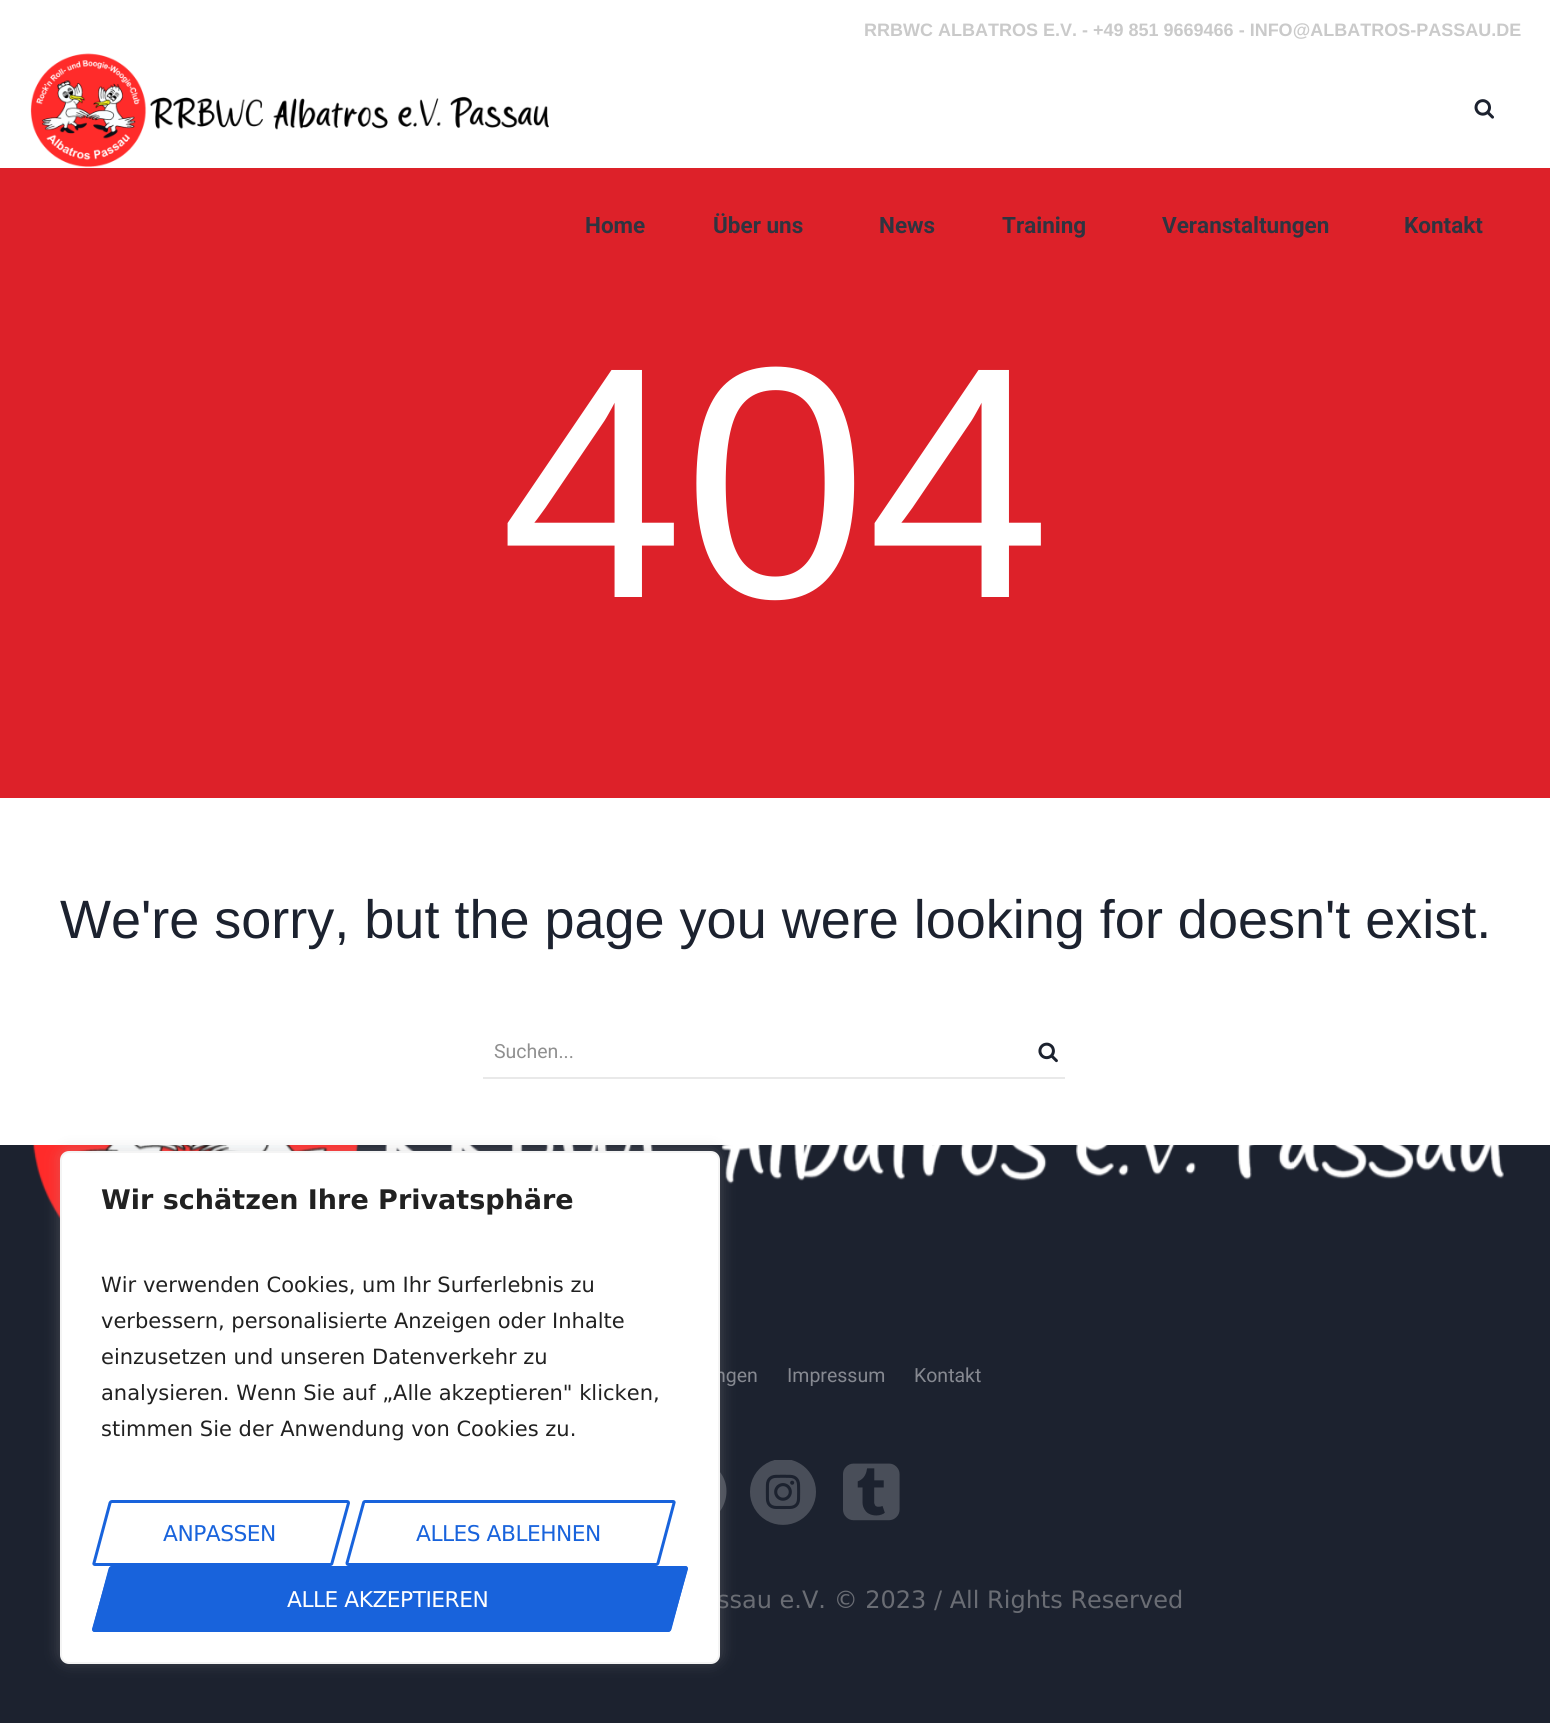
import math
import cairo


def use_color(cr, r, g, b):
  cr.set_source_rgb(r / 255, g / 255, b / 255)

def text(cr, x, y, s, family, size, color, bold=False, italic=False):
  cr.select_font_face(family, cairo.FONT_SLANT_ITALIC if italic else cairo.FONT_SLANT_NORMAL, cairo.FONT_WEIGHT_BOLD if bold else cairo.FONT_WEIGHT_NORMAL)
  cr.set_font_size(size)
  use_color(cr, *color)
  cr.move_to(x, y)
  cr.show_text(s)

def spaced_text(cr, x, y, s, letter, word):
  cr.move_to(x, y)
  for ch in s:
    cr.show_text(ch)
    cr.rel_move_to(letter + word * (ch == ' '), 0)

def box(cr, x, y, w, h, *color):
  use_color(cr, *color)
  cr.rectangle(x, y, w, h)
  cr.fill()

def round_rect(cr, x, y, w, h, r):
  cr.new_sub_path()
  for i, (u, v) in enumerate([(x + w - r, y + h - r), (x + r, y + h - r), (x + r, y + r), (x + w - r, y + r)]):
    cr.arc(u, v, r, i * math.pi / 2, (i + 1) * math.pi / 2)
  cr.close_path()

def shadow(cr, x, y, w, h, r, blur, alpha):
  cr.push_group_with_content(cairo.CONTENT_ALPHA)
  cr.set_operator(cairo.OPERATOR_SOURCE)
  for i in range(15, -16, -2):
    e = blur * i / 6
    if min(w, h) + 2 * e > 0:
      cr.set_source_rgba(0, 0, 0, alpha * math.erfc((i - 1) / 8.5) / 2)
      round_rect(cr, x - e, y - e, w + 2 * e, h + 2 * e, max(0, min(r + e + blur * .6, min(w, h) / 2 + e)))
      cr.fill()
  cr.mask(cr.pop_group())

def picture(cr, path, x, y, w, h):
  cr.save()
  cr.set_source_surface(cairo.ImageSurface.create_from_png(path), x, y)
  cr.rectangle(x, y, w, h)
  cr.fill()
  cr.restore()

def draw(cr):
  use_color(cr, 28, 34, 47)
  cr.paint()
  box(cr, 0, 0, 1550, 168, 255, 255, 255)
  picture(cr, "img_01.png", 30, 53, 519, 115)
  picture(cr, "img_02.png", 1474, 99, 20, 20)
  box(cr, 0, 798, 1550, 347, 255, 255, 255)
  box(cr, 0, 168, 1550, 630, 221, 33, 41)
  box(cr, 483, 1077, 582, 2, 233, 233, 233)
  picture(cr, "img_03.png", 1038, 1042, 20, 21)
  picture(cr, "img_04.png", 32, 1145, 1472, 75)
  use_color(cr, 73, 78, 89)
  cr.new_path()
  cr.move_to(695, 1460)
  cr.curve_to(702, 1460, 709, 1463, 715, 1467)
  cr.curve_to(738, 1486, 724, 1524, 695, 1524)
  cr.curve_to(665, 1524, 652, 1486, 675, 1467)
  cr.curve_to(680, 1463, 687, 1460, 695, 1460)
  cr.close_path()
  cr.move_to(702, 1482)
  cr.line_to(702, 1477)
  cr.curve_to(693, 1477, 691, 1478, 691, 1487)
  cr.line_to(686, 1487)
  cr.line_to(686, 1492)
  cr.line_to(691, 1492)
  cr.line_to(691, 1507)
  cr.line_to(696, 1507)
  cr.line_to(696, 1492)
  cr.line_to(702, 1492)
  cr.line_to(702, 1487)
  cr.line_to(696, 1487)
  cr.curve_to(696, 1481, 696, 1482, 702, 1482)
  cr.close_path()
  cr.fill()
  picture(cr, "img_05.png", 750, 1460, 66, 65)
  picture(cr, "img_06.png", 843, 1463, 57, 58)
  use_color(cr, 172, 171, 171)
  shadow(cr, 60, 1149, 660, 513, 9, 7.5, 0.3)
  text(cr, 864, 36, "RRBWC ALBATROS E.V. - +49 851 9669466 - INFO@ALBATROS-PASSAU.DE", "Liberation Sans", 18, (202, 202, 202), bold=True)
  text(cr, 585, 233, "Home", "Roboto", 22.5, (47, 52, 64), bold=True)
  text(cr, 713, 233, "Über uns", "Roboto", 22.5, (47, 52, 64), bold=True)
  text(cr, 879, 233, "News", "Roboto", 22.5, (47, 52, 64), bold=True)
  text(cr, 1002, 233, "Training", "Roboto", 22.5, (47, 52, 64), bold=True)
  text(cr, 1162, 233, "Veranstaltungen", "Roboto", 22.5, (47, 52, 64), bold=True)
  text(cr, 1404, 233, "Kontakt", "Roboto", 22.5, (47, 52, 64), bold=True)
  text(cr, 500, 597, "404", "Liberation Sans", 330, (255, 255, 255))
  text(cr, 60, 938, "We're sorry, but the page you were looking for doesn't exist.", "Liberation Sans", 54, (28, 34, 47))
  text(cr, 494, 1058, "Suchen...", "Roboto", 19.5, (144, 144, 144))
  text(cr, 715, 1382, "ngen", "Roboto", 19.5, (134, 137, 145))
  text(cr, 787, 1382, "Impressum", "Roboto", 19.5, (134, 137, 145))
  text(cr, 914, 1382, "Kontakt", "Roboto", 19.5, (134, 137, 145))
  text(cr, 717, 1608, "ssau e.V. © 2023 / All Rights Reserved", "DejaVu Sans", 24, (106, 109, 116))
  use_color(cr, 255, 255, 255)
  round_rect(cr, 61, 1152, 658, 511, 8)
  cr.fill_preserve()
  use_color(cr, 244, 244, 244)
  cr.stroke()
  text(cr, 101, 1209, "Wir schätzen Ihre Privatsphäre", "DejaVu Sans", 27, (33, 33, 33), bold=True)
  text(cr, 101, 1292, "Wir verwenden Cookies, um Ihr Surferlebnis zu", "DejaVu Sans", 21, (33, 33, 33))
  text(cr, 101, 1328, "verbessern, personalisierte Anzeigen oder Inhalte", "DejaVu Sans", 21, (33, 33, 33))
  text(cr, 101, 1364, "einzusetzen und unseren Datenverkehr zu", "DejaVu Sans", 21, (33, 33, 33))
  text(cr, 101, 1400, "analysieren. Wenn Sie auf „Alle akzeptieren\" klicken,", "DejaVu Sans", 21, (33, 33, 33))
  text(cr, 101, 1436, "stimmen Sie der Anwendung von Cookies zu.", "DejaVu Sans", 21, (33, 33, 33))
  cr.new_path()
  cr.move_to(112, 1501.5)
  cr.line_to(347, 1501.5)
  cr.curve_to(348, 1501.5, 348.5, 1502, 348.5, 1503)
  cr.line_to(332, 1563)
  cr.curve_to(332, 1564, 331, 1564.5, 330.5, 1564.5)
  cr.line_to(95, 1564.5)
  cr.curve_to(94, 1564.5, 93.5, 1564, 94, 1563)
  cr.line_to(110, 1503)
  cr.curve_to(110.5, 1502, 111, 1501.5, 112, 1501.5)
  cr.close_path()
  use_color(cr, 24, 99, 220)
  cr.set_line_width(3)
  cr.stroke()
  cr.set_font_size(21.75)
  spaced_text(cr, 163, 1541, "ANPASSEN", -0.5, 0)
  cr.new_path()
  cr.move_to(365, 1501.5)
  cr.line_to(673, 1501.5)
  cr.curve_to(674, 1501.5, 674.5, 1502, 674, 1503)
  cr.line_to(658, 1563)
  cr.curve_to(657.5, 1564, 657, 1564.5, 656, 1564.5)
  cr.line_to(348.5, 1564.5)
  cr.curve_to(347.5, 1564.5, 347, 1564, 347, 1563)
  cr.line_to(363.5, 1503)
  cr.curve_to(363.5, 1502, 364.5, 1501.5, 365, 1501.5)
  cr.close_path()
  cr.stroke()
  spaced_text(cr, 416, 1541, "ALLES ABLEHNEN", -0.5, 0)
  cr.new_path()
  cr.move_to(112, 1566)
  cr.line_to(685, 1566)
  cr.curve_to(687, 1566, 688, 1567, 688, 1569)
  cr.line_to(671, 1629)
  cr.curve_to(671, 1631, 669, 1632, 668, 1632)
  cr.line_to(95, 1632)
  cr.curve_to(93, 1632, 92, 1631, 92, 1629)
  cr.line_to(109, 1569)
  cr.curve_to(109, 1567, 111, 1566, 112, 1566)
  cr.close_path()
  cr.fill()
  cr.new_path()
  cr.move_to(112, 1567.5)
  cr.line_to(685, 1567.5)
  cr.curve_to(686, 1567.5, 686.5, 1568, 686, 1569)
  cr.line_to(670, 1629)
  cr.curve_to(669.5, 1630, 669, 1630.5, 668, 1630.5)
  cr.line_to(95, 1630.5)
  cr.curve_to(94, 1630.5, 93.5, 1630, 94, 1629)
  cr.line_to(110, 1569)
  cr.curve_to(110.5, 1568, 111, 1567.5, 112, 1567.5)
  cr.close_path()
  cr.stroke()
  use_color(cr, 255, 255, 255)
  spaced_text(cr, 287, 1607, "ALLE AKZEPTIEREN", -0.5, 0)


surface = cairo.ImageSurface(cairo.FORMAT_RGB24, 1550, 1723)
cr = cairo.Context(surface)
options = cairo.FontOptions()
options.set_hint_metrics(cairo.HINT_METRICS_OFF)
options.set_hint_style(cairo.HINT_STYLE_NONE)
cr.set_font_options(options)
cr.set_miter_limit(4)
draw(cr)
surface.write_to_png("out.png")
